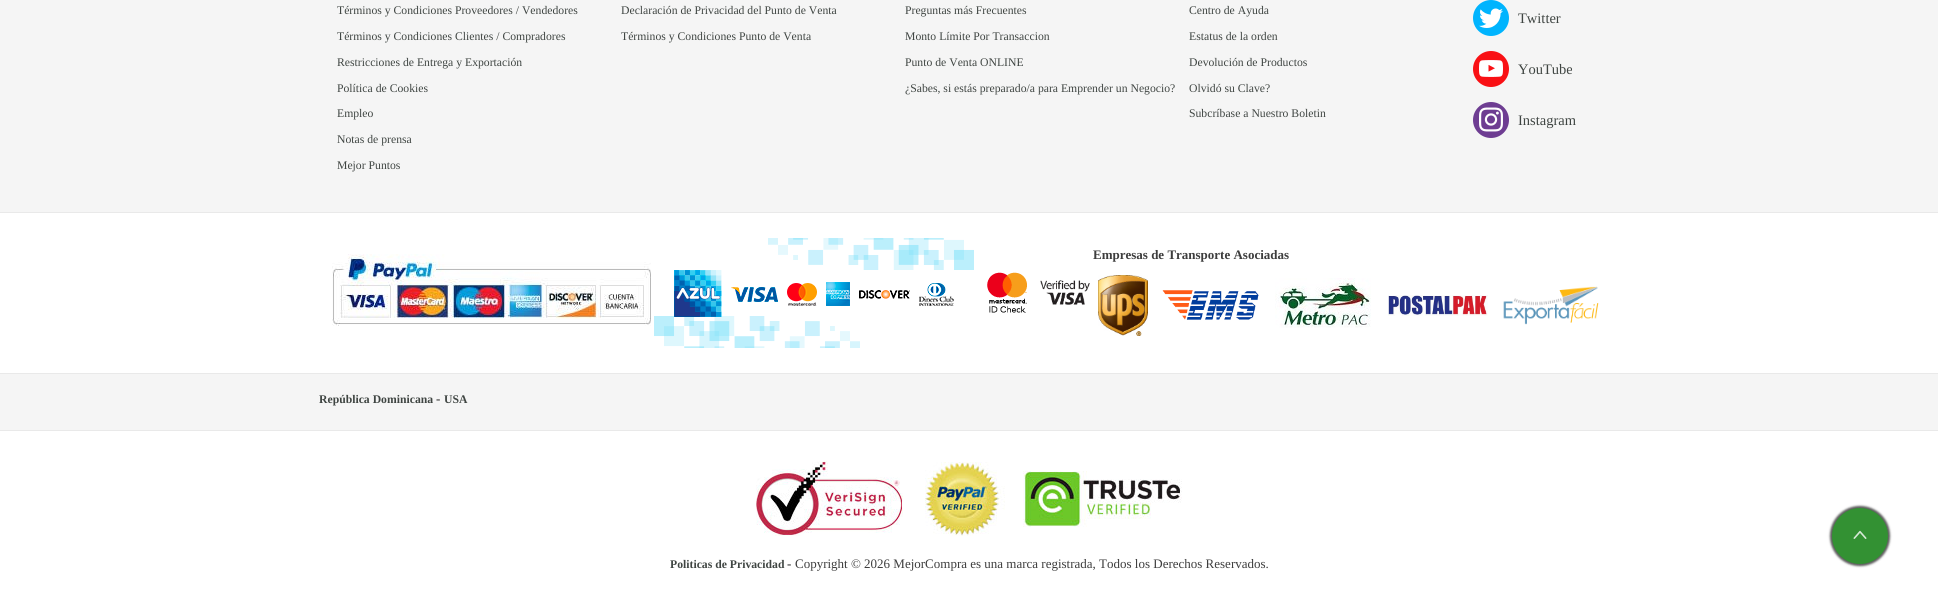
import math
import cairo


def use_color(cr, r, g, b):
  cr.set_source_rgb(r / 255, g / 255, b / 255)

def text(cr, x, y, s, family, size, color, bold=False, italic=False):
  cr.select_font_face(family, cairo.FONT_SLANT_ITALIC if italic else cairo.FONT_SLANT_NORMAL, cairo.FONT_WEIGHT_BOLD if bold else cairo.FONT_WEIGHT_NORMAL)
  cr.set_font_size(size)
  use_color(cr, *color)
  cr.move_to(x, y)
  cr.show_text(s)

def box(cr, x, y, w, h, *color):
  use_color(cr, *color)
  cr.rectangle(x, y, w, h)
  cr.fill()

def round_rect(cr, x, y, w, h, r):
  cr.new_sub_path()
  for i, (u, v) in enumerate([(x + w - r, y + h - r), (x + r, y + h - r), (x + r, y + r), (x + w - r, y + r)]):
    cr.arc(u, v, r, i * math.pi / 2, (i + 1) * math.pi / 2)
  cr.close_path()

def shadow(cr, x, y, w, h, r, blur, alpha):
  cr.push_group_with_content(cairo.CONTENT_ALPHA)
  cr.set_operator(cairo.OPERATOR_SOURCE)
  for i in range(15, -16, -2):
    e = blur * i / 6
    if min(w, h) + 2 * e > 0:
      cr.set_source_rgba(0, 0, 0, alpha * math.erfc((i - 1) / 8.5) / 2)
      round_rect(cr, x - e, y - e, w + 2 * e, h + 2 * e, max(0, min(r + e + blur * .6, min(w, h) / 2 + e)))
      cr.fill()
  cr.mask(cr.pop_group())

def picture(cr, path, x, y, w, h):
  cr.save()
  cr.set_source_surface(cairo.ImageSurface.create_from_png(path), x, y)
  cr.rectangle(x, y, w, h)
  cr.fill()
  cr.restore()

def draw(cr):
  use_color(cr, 255, 255, 255)
  cr.paint()
  box(cr, 0, 0, 1938, 212, 245, 245, 245)
  box(cr, 0, 212, 1938, 1, 233, 233, 233)
  use_color(cr, 0, 180, 254)
  cr.arc(1491, 18, 18, 0, 2 * math.pi)
  cr.fill()
  picture(cr, "img_01.png", 1479, 8, 24, 20)
  use_color(cr, 249, 16, 20)
  cr.arc(1491, 69, 18, 0, 2 * math.pi)
  cr.fill()
  picture(cr, "img_02.png", 1479, 60, 24, 17)
  use_color(cr, 110, 61, 146)
  cr.arc(1491, 120, 18, 0, 2 * math.pi)
  cr.fill()
  picture(cr, "img_03.png", 1479, 107, 24, 25)
  picture(cr, "img_04.png", 332, 254, 319, 72)
  picture(cr, "img_05.png", 654, 238, 320, 110)
  picture(cr, "img_06.png", 987, 272, 40, 41)
  picture(cr, "img_07.png", 1040, 280, 50, 25)
  picture(cr, "img_08.png", 1098, 275, 50, 61)
  picture(cr, "img_09.png", 1162, 290, 97, 30)
  picture(cr, "img_10.png", 1275, 278, 96, 50)
  picture(cr, "img_11.png", 1388, 295, 100, 21)
  picture(cr, "img_12.png", 1503, 286, 96, 39)
  box(cr, 0, 374, 1938, 56, 245, 245, 245)
  box(cr, 0, 373, 1938, 1, 233, 233, 233)
  box(cr, 0, 430, 1938, 1, 233, 233, 233)
  picture(cr, "img_13.png", 756, 461, 147, 75)
  picture(cr, "img_14.png", 925, 462, 80, 74)
  picture(cr, "img_15.png", 1023, 471, 159, 56)
  use_color(cr, 51, 51, 51)
  shadow(cr, 1830, 506, 60, 60, 30, 1, 0.8)
  use_color(cr, 51, 145, 51)
  cr.arc(1860, 536, 28, 0, 2 * math.pi)
  cr.fill()
  picture(cr, "img_16.png", 1853, 530, 14, 9)
  text(cr, 337, 14, "Términos y Condiciones Proveedores / Vendedores", "Liberation Serif", 11.7, (63, 69, 66))
  text(cr, 337, 40, "Términos y Condiciones Clientes / Compradores", "Liberation Serif", 11.7, (63, 69, 66))
  text(cr, 337, 66, "Restricciones de Entrega y Exportación", "Liberation Serif", 11.7, (63, 69, 66))
  text(cr, 337, 92, "Política de Cookies", "Liberation Serif", 11.7, (63, 69, 66))
  text(cr, 337, 117, "Empleo", "Liberation Serif", 11.7, (63, 69, 66))
  text(cr, 337, 143, "Notas de prensa", "Liberation Serif", 11.7, (63, 69, 66))
  text(cr, 337, 169, "Mejor Puntos", "Liberation Serif", 11.7, (63, 69, 66))
  text(cr, 621, 14, "Declaración de Privacidad del Punto de Venta", "Liberation Serif", 11.7, (63, 69, 66))
  text(cr, 621, 40, "Términos y Condiciones Punto de Venta", "Liberation Serif", 11.7, (63, 69, 66))
  text(cr, 905, 14, "Preguntas más Frecuentes", "Liberation Serif", 11.7, (63, 69, 66))
  text(cr, 905, 40, "Monto Límite Por Transaccion", "Liberation Serif", 11.7, (63, 69, 66))
  text(cr, 905, 66, "Punto de Venta ONLINE", "Liberation Serif", 11.7, (63, 69, 66))
  text(cr, 905, 92, "¿Sabes, si estás preparado/a para Emprender un Negocio?", "Liberation Serif", 11.7, (63, 69, 66))
  text(cr, 1189, 14, "Centro de Ayuda", "Liberation Serif", 11.7, (63, 69, 66))
  text(cr, 1189, 40, "Estatus de la orden", "Liberation Serif", 11.7, (63, 69, 66))
  text(cr, 1189, 66, "Devolución de Productos", "Liberation Serif", 11.7, (63, 69, 66))
  text(cr, 1189, 92, "Olvidó su Clave?", "Liberation Serif", 11.7, (63, 69, 66))
  text(cr, 1189, 117, "Subcríbase a Nuestro Boletin", "Liberation Serif", 11.7, (63, 69, 66))
  text(cr, 1518, 23, "Twitter", "Liberation Serif", 14.5, (63, 69, 66))
  text(cr, 1518, 74, "YouTube", "Liberation Serif", 14.5, (63, 69, 66))
  text(cr, 1518, 125, "Instagram", "Liberation Serif", 14.5, (63, 69, 66))
  text(cr, 1093, 259, "Empresas de Transporte Asociadas", "Liberation Serif", 13, (61, 61, 61), bold=True)
  text(cr, 319, 403, "República Dominicana", "Liberation Serif", 11.7, (63, 69, 66), bold=True)
  text(cr, 436, 403, "-", "Liberation Serif", 13, (61, 61, 61), bold=True)
  text(cr, 444, 403, "USA", "Liberation Serif", 11.7, (63, 69, 66), bold=True)
  text(cr, 670, 568, "Politicas de Privacidad", "Liberation Serif", 11.7, (63, 69, 66), bold=True)
  text(cr, 787, 568, "-", "Liberation Serif", 13, (61, 61, 61), bold=True)
  text(cr, 795, 568, "Copyright © 2026 MejorCompra es una marca registrada, Todos los Derechos Reservados.", "Liberation Serif", 13, (61, 61, 61))


surface = cairo.ImageSurface(cairo.FORMAT_RGB24, 1938, 614)
cr = cairo.Context(surface)
options = cairo.FontOptions()
options.set_hint_metrics(cairo.HINT_METRICS_OFF)
options.set_hint_style(cairo.HINT_STYLE_NONE)
cr.set_font_options(options)
cr.set_miter_limit(4)
draw(cr)
surface.write_to_png("out.png")
